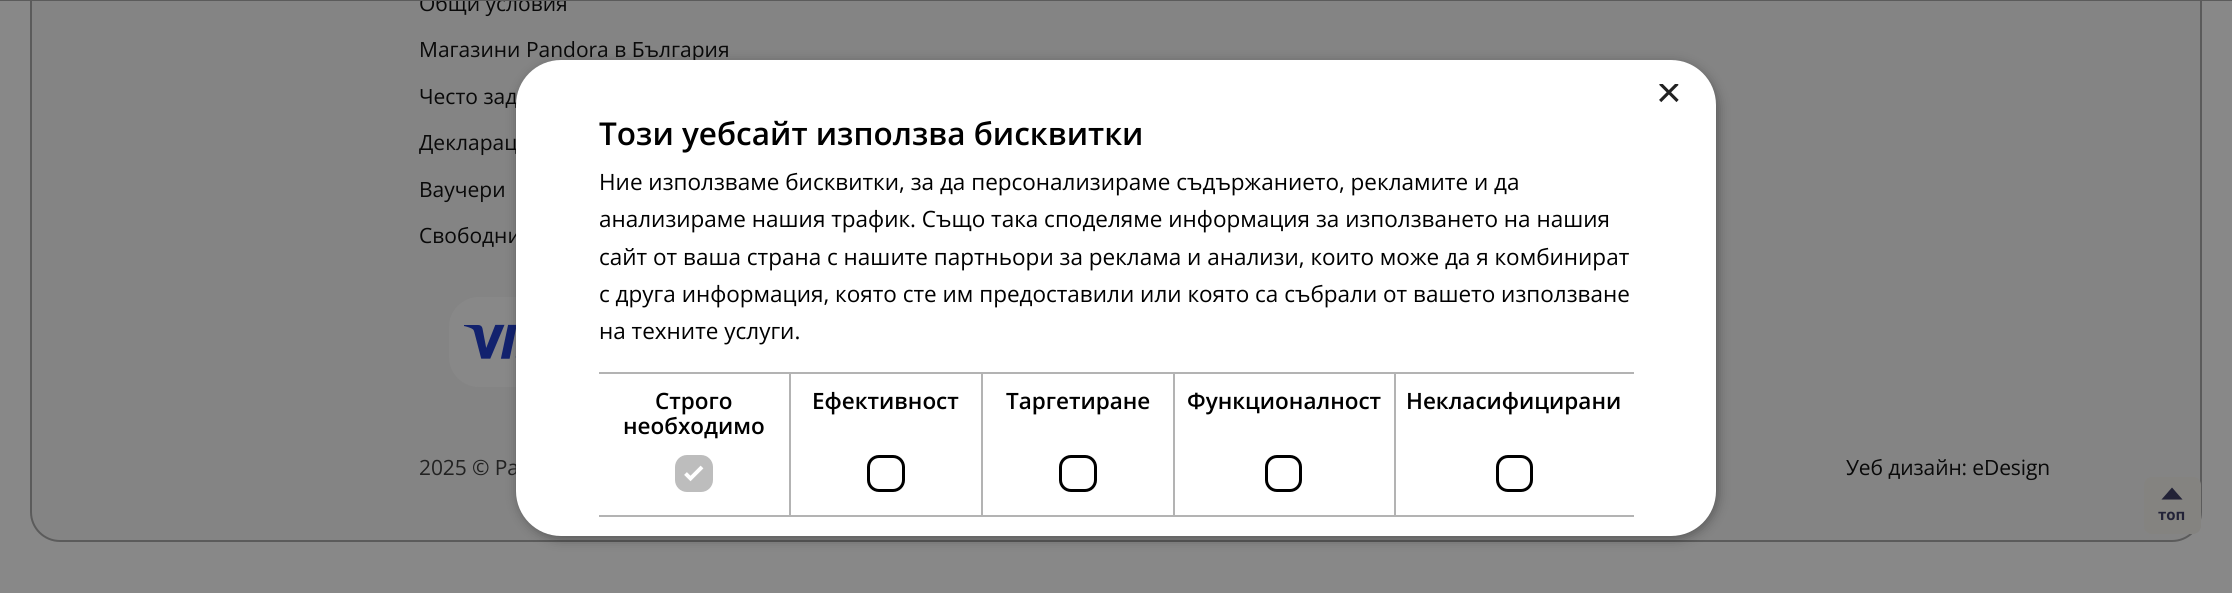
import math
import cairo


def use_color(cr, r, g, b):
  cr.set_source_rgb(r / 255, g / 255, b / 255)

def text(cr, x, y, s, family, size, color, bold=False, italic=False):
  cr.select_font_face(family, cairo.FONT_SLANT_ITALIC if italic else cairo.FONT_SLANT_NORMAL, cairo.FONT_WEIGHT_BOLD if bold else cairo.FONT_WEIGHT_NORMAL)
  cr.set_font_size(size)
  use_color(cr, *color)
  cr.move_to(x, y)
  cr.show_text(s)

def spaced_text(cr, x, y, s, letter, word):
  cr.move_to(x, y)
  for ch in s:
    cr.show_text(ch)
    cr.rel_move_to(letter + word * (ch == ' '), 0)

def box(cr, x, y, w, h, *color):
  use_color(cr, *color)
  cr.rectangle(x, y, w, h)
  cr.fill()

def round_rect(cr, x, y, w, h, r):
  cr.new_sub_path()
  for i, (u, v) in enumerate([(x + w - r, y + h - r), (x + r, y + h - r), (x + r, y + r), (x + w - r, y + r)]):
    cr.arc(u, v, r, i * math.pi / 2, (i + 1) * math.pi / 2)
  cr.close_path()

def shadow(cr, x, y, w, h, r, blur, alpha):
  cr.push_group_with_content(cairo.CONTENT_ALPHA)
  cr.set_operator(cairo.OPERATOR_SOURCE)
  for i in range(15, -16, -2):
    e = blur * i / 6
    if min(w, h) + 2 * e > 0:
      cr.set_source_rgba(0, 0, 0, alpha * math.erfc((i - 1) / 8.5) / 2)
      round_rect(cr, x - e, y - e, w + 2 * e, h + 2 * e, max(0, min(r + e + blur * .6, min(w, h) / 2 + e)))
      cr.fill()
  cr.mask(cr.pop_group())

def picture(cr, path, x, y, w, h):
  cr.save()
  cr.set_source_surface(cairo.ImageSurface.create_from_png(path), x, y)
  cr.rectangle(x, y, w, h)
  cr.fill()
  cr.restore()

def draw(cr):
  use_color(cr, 136, 136, 136)
  cr.paint()
  use_color(cr, 132, 132, 132)
  round_rect(cr, 31, -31, 2170, 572, 29)
  cr.fill_preserve()
  use_color(cr, 91, 91, 91)
  cr.stroke()
  use_color(cr, 136, 136, 136)
  round_rect(cr, 449, 297, 1002, 90, 30)
  cr.fill()
  picture(cr, "img_01.png", 464, 324, 52, 35)
  use_color(cr, 0, 0, 0)
  shadow(cr, 518, 63, 1200, 476, 45, 6, 0.35)
  use_color(cr, 132, 131, 128)
  round_rect(cr, 2144, 477, 57, 57, 8)
  cr.fill()
  use_color(cr, 34, 34, 55)
  cr.new_path()
  cr.move_to(2182.5, 499.5)
  cr.line_to(2161.5, 499.5)
  cr.line_to(2172, 487.5)
  cr.close_path()
  cr.fill()
  text(cr, 419, 11, "Общи условия", "Open Sans", 21, (9, 9, 9))
  box(cr, 0, 0, 2232, 1, 91, 91, 91)
  text(cr, 419, 57, "Магазини Pandora в България", "Open Sans", 21, (9, 9, 9))
  text(cr, 419, 104, "Често зад", "Open Sans", 21, (9, 9, 9))
  text(cr, 419, 150, "Декларац", "Open Sans", 21, (9, 9, 9))
  text(cr, 419, 197, "Ваучери", "Open Sans", 21, (9, 9, 9))
  text(cr, 419, 243, "Свободни", "Open Sans", 21, (9, 9, 9))
  use_color(cr, 34, 34, 34)
  spaced_text(cr, 419, 475, "2025 © Pa", -0.1, 0)
  use_color(cr, 9, 9, 9)
  spaced_text(cr, 1846, 475, "Уеб дизайн: eDesign", -0.1, 0)
  use_color(cr, 255, 255, 255)
  round_rect(cr, 516, 60, 1200, 476, 45)
  cr.fill()
  cr.save()
  cr.rectangle(1656, 84, 23, 23)
  cr.clip()
  text(cr, 1656, 107, "×", "Liberation Sans", 44, (34, 34, 34))
  cr.restore()
  text(cr, 599, 145, "Този уебсайт използва бисквитки", "Open Sans SemiBold", 31.5, (0, 0, 0))
  text(cr, 599, 190, "Ние използваме бисквитки, за да персонализираме съдържанието, рекламите и да", "Open Sans", 22.5, (0, 0, 0))
  text(cr, 599, 227, "анализираме нашия трафик. Също така споделяме информация за използването на нашия", "Open Sans", 22.5, (0, 0, 0))
  text(cr, 599, 265, "сайт от ваша страна с нашите партньори за реклама и анализи, които може да я комбинират", "Open Sans", 22.5, (0, 0, 0))
  text(cr, 599, 302, "с друга информация, която сте им предоставили или която са събрали от вашето използване", "Open Sans", 22.5, (0, 0, 0))
  text(cr, 599, 339, "на техните услуги.", "Open Sans", 22.5, (0, 0, 0))
  box(cr, 599, 372, 796, 2, 179, 179, 179)
  box(cr, 789, 372, 2, 144, 179, 179, 179)
  box(cr, 599, 515, 192, 2, 179, 179, 179)
  text(cr, 655, 409, "Строго", "Open Sans SemiBold", 22.5, (0, 0, 0))
  text(cr, 623, 434, "необходимо", "Open Sans SemiBold", 22.5, (0, 0, 0))
  use_color(cr, 189, 189, 189)
  round_rect(cr, 675, 455, 38, 37, 12)
  cr.fill()
  cr.new_path()
  cr.move_to(685.5, 473.5)
  cr.line_to(690.5, 478.5)
  cr.line_to(702, 467)
  use_color(cr, 255, 255, 255)
  cr.set_line_width(3.9)
  cr.stroke()
  box(cr, 981, 372, 2, 144, 179, 179, 179)
  box(cr, 791, 515, 192, 2, 179, 179, 179)
  text(cr, 812, 409, "Ефективност", "Open Sans SemiBold", 22.5, (0, 0, 0))
  round_rect(cr, 868.5, 456.5, 35, 34, 10.5)
  cr.set_line_width(3)
  cr.stroke()
  box(cr, 1173, 372, 2, 144, 179, 179, 179)
  box(cr, 983, 515, 192, 2, 179, 179, 179)
  text(cr, 1006, 409, "Таргетиране", "Open Sans SemiBold", 22.5, (0, 0, 0))
  round_rect(cr, 1060.5, 456.5, 35, 34, 10.5)
  cr.stroke()
  box(cr, 1394, 372, 2, 144, 179, 179, 179)
  box(cr, 1175, 515, 459, 2, 179, 179, 179)
  text(cr, 1187, 409, "Функционалност", "Open Sans SemiBold", 22.5, (0, 0, 0))
  round_rect(cr, 1266.5, 456.5, 34, 34, 10.5)
  cr.stroke()
  box(cr, 1395, 372, 239, 2, 179, 179, 179)
  text(cr, 1406, 409, "Некласифицирани", "Open Sans SemiBold", 22.5, (0, 0, 0))
  round_rect(cr, 1497.5, 456.5, 34, 34, 10.5)
  cr.stroke()
  text(cr, 2158, 520, "топ", "Open Sans", 15, (34, 34, 55), bold=True)


surface = cairo.ImageSurface(cairo.FORMAT_RGB24, 2232, 593)
cr = cairo.Context(surface)
options = cairo.FontOptions()
options.set_hint_metrics(cairo.HINT_METRICS_OFF)
options.set_hint_style(cairo.HINT_STYLE_NONE)
cr.set_font_options(options)
cr.set_miter_limit(4)
draw(cr)
surface.write_to_png("out.png")
